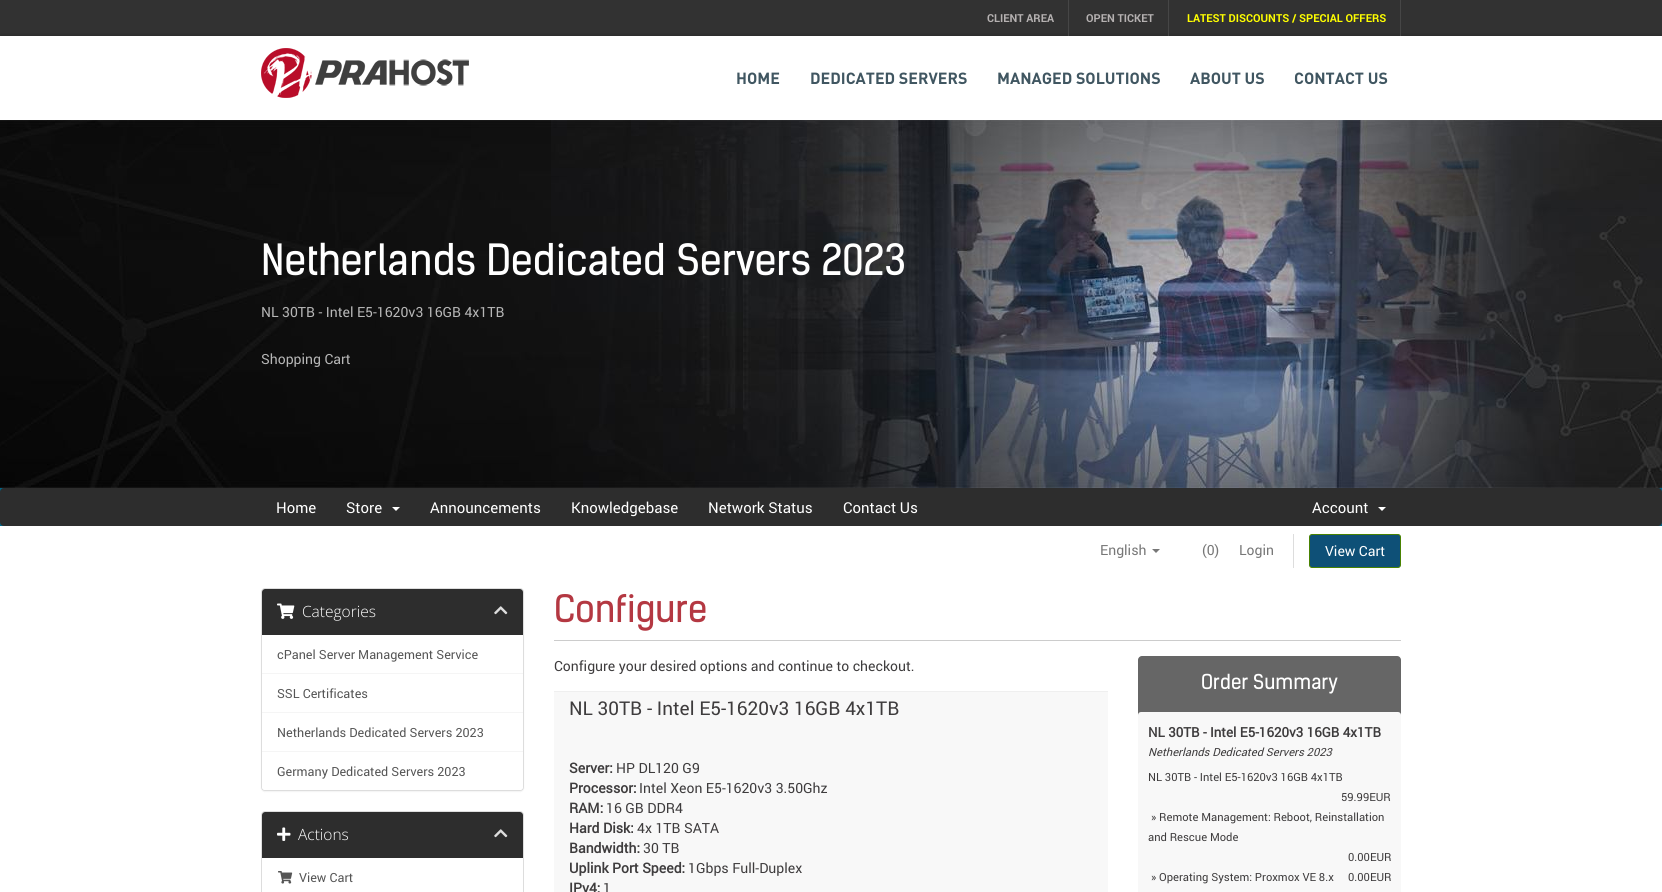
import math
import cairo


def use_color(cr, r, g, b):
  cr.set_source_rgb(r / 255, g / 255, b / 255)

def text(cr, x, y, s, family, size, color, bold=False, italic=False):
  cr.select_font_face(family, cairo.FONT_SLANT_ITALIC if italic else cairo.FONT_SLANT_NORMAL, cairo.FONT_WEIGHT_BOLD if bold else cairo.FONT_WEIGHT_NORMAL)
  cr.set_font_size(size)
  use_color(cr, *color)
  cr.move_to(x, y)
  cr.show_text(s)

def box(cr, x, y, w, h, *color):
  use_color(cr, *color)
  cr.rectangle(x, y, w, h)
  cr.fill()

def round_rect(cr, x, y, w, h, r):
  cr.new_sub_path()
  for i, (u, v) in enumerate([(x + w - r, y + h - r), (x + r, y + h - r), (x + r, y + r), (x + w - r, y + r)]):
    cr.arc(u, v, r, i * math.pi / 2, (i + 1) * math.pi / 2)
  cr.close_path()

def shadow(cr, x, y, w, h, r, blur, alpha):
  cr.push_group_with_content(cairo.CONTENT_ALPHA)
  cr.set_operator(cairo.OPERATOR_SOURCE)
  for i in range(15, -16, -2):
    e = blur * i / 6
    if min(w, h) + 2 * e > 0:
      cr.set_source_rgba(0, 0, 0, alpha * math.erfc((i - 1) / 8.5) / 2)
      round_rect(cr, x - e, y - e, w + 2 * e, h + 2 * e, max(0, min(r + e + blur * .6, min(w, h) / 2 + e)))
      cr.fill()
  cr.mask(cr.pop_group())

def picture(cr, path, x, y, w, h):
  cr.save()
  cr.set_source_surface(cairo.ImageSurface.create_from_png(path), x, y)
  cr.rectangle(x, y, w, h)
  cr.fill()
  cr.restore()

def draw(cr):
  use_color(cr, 255, 255, 255)
  cr.paint()
  box(cr, 0, 0, 1662, 36, 50, 50, 50)
  cr.save()
  cr.rectangle(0, 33, 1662, 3)
  cr.clip()
  use_color(cr, 0, 0, 0)
  shadow(cr, 0, 36, 1662, 84, 0, 2.5, 0.22)
  cr.restore()
  box(cr, 1068, 0, 1, 36, 70, 70, 70)
  box(cr, 1168, 0, 1, 36, 70, 70, 70)
  box(cr, 1400, 0, 1, 36, 70, 70, 70)
  picture(cr, "img_01.png", 261, 48, 208, 50)
  picture(cr, "img_02.png", 0, 120, 1662, 368)
  box(cr, 0, 488, 1662, 38, 0, 102, 135)
  use_color(cr, 45, 45, 45)
  round_rect(cr, 0, 488, 1662, 38, 4)
  cr.fill()
  use_color(cr, 255, 255, 255)
  cr.new_path()
  cr.move_to(392, 507)
  cr.line_to(400, 507)
  cr.line_to(396, 511)
  cr.close_path()
  cr.fill()
  cr.new_path()
  cr.move_to(1378, 507)
  cr.line_to(1386, 507)
  cr.line_to(1382, 511)
  cr.close_path()
  cr.fill()
  use_color(cr, 119, 119, 119)
  cr.new_path()
  cr.move_to(1152, 549)
  cr.line_to(1160, 549)
  cr.line_to(1156, 553)
  cr.close_path()
  cr.fill()
  box(cr, 1293, 534, 1, 34, 221, 221, 221)
  use_color(cr, 14, 80, 119)
  round_rect(cr, 1309.5, 534.5, 91, 33, 2.5)
  cr.fill_preserve()
  use_color(cr, 73, 131, 2)
  cr.set_line_width(1)
  cr.stroke()
  use_color(cr, 0, 0, 0)
  shadow(cr, 261, 589, 263, 203, 4, 0.5, 0.05)
  use_color(cr, 255, 255, 255)
  round_rect(cr, 261.5, 588.5, 262, 202, 3.5)
  cr.fill_preserve()
  use_color(cr, 221, 221, 221)
  cr.stroke()
  use_color(cr, 45, 45, 45)
  cr.new_path()
  cr.move_to(265, 589)
  cr.line_to(520, 589)
  cr.curve_to(521.5, 589, 523, 590.5, 523, 592)
  cr.line_to(523, 635)
  cr.line_to(262, 635)
  cr.line_to(262, 592)
  cr.curve_to(262, 590.5, 263.5, 589, 265, 589)
  cr.close_path()
  cr.fill()
  picture(cr, "img_03.png", 277, 603, 18, 16)
  picture(cr, "img_04.png", 494, 606, 14, 9)
  box(cr, 262, 673, 261, 1, 245, 245, 245)
  box(cr, 262, 712, 261, 1, 245, 245, 245)
  use_color(cr, 255, 255, 255)
  cr.new_path()
  cr.move_to(262, 751)
  cr.line_to(523, 751)
  cr.line_to(523, 787)
  cr.curve_to(523, 788.5, 521.5, 790, 520, 790)
  cr.line_to(265, 790)
  cr.curve_to(263.5, 790, 262, 788.5, 262, 787)
  cr.close_path()
  cr.fill()
  box(cr, 262, 751, 261, 1, 245, 245, 245)
  round_rect(cr, 261.5, 811.5, 262, 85, 3.5)
  use_color(cr, 221, 221, 221)
  cr.stroke()
  use_color(cr, 45, 45, 45)
  cr.new_path()
  cr.move_to(265, 812)
  cr.line_to(520, 812)
  cr.curve_to(521.5, 812, 523, 813.5, 523, 815)
  cr.line_to(523, 858)
  cr.line_to(262, 858)
  cr.line_to(262, 815)
  cr.curve_to(262, 813.5, 263.5, 812, 265, 812)
  cr.close_path()
  cr.fill()
  picture(cr, "img_05.png", 277, 827, 14, 14)
  picture(cr, "img_04.png", 494, 829, 14, 9)
  picture(cr, "img_06.png", 278, 871, 15, 13)
  box(cr, 554, 640, 847, 1, 204, 204, 204)
  box(cr, 554, 692, 554, 200, 248, 248, 248)
  box(cr, 554, 691, 554, 1, 239, 239, 239)
  use_color(cr, 102, 102, 102)
  round_rect(cr, 1138, 656, 263, 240, 4)
  cr.fill()
  use_color(cr, 248, 248, 248)
  round_rect(cr, 1138, 712, 263, 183, 3)
  cr.fill()
  text(cr, 987, 22, "CLIENT AREA", "Roboto", 11, (181, 177, 177), bold=True)
  text(cr, 1086, 22, "OPEN TICKET", "Roboto", 11, (181, 177, 177), bold=True)
  text(cr, 1187, 22, "LATEST DISCOUNTS / SPECIAL OFFERS", "Roboto", 11, (255, 255, 0), bold=True)
  text(cr, 736, 84, "HOME", "DIN", 16, (64, 86, 97), bold=True)
  text(cr, 810, 84, "DEDICATED SERVERS", "DIN", 16, (64, 86, 97), bold=True)
  text(cr, 997, 84, "MANAGED SOLUTIONS", "DIN", 16, (64, 86, 97), bold=True)
  text(cr, 1190, 84, "ABOUT US", "DIN", 16, (64, 86, 97), bold=True)
  text(cr, 1294, 84, "CONTACT US", "DIN", 16, (64, 86, 97), bold=True)
  text(cr, 261, 275, "Netherlands Dedicated Servers 2023", "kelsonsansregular", 41, (255, 255, 255))
  text(cr, 261, 317, "NL 30TB - Intel E5-1620v3 16GB 4x1TB", "Roboto", 14, (183, 183, 183))
  text(cr, 261, 364, "Shopping Cart", "Roboto", 14, (183, 183, 183))
  text(cr, 276, 513, "Home", "Roboto", 15, (255, 255, 255))
  text(cr, 346, 513, "Store", "Roboto", 15, (255, 255, 255))
  text(cr, 430, 513, "Announcements", "Roboto", 15, (255, 255, 255))
  text(cr, 571, 513, "Knowledgebase", "Roboto", 15, (255, 255, 255))
  text(cr, 708, 513, "Network Status", "Roboto", 15, (255, 255, 255))
  text(cr, 843, 513, "Contact Us", "Roboto", 15, (255, 255, 255))
  text(cr, 1312, 513, "Account", "Roboto", 15, (255, 255, 255))
  text(cr, 1100, 555, "English", "Roboto", 14, (119, 119, 119))
  text(cr, 1202, 555, "(0)", "Roboto", 14, (119, 119, 119))
  text(cr, 1239, 555, "Login", "Roboto", 14, (119, 119, 119))
  text(cr, 1325, 556, "View Cart", "Roboto", 14, (255, 255, 255))
  text(cr, 302, 617, "Categories", "Open Sans Light", 15.5, (255, 255, 255))
  text(cr, 277, 659, "cPanel Server Management Service", "Roboto", 12.6, (85, 85, 85))
  text(cr, 277, 698, "SSL Certificates", "Roboto", 12.6, (85, 85, 85))
  text(cr, 277, 737, "Netherlands Dedicated Servers 2023", "Roboto", 12.6, (85, 85, 85))
  text(cr, 277, 776, "Germany Dedicated Servers 2023", "Roboto", 12.6, (85, 85, 85))
  text(cr, 298, 840, "Actions", "Open Sans Light", 15.5, (255, 255, 255))
  text(cr, 299, 882, "View Cart", "Roboto", 12.6, (85, 85, 85))
  text(cr, 554, 622, "Configure", "kelsonsansregular", 36, (180, 56, 66))
  text(cr, 554, 671, "Configure your desired options and continue to checkout.", "Roboto", 14, (62, 60, 61))
  text(cr, 569, 715, "NL 30TB - Intel E5-1620v3 16GB 4x1TB", "Roboto", 19, (62, 60, 61))
  text(cr, 569, 773, "Server:", "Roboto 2", 14, (62, 60, 61), bold=True)
  text(cr, 616, 773, "HP DL120 G9", "Roboto", 14, (62, 60, 61))
  text(cr, 569, 793, "Processor:", "Roboto 2", 14, (62, 60, 61), bold=True)
  text(cr, 639, 793, "Intel Xeon E5-1620v3 3.50Ghz", "Roboto", 14, (62, 60, 61))
  text(cr, 569, 813, "RAM:", "Roboto 2", 14, (62, 60, 61), bold=True)
  text(cr, 606, 813, "16 GB DDR4", "Roboto", 14, (62, 60, 61))
  text(cr, 569, 833, "Hard Disk:", "Roboto 2", 14, (62, 60, 61), bold=True)
  text(cr, 637, 833, "4x 1TB SATA", "Roboto", 14, (62, 60, 61))
  text(cr, 569, 853, "Bandwidth:", "Roboto 2", 14, (62, 60, 61), bold=True)
  text(cr, 643, 853, "30 TB", "Roboto", 14, (62, 60, 61))
  text(cr, 569, 873, "Uplink Port Speed:", "Roboto 2", 14, (62, 60, 61), bold=True)
  text(cr, 688, 873, "1Gbps Full-Duplex", "Roboto", 14, (62, 60, 61))
  text(cr, 569, 893, "IPv4:", "Roboto 2", 14, (62, 60, 61), bold=True)
  text(cr, 603, 893, "1", "Roboto", 14, (62, 60, 61))
  text(cr, 1201, 689, "Order Summary", "kelsonsansregular", 19.5, (255, 255, 255))
  text(cr, 1148, 737, "NL 30TB - Intel E5-1620v3 16GB 4x1TB", "Roboto 2", 13.4, (62, 60, 61), bold=True)
  text(cr, 1148, 756, "Netherlands Dedicated Servers 2023", "Roboto", 11.2, (62, 60, 61), italic=True)
  text(cr, 1148, 781, "NL 30TB - Intel E5-1620v3 16GB 4x1TB", "Roboto", 11.2, (62, 60, 61))
  text(cr, 1341, 801, "59.99EUR", "Roboto", 11.2, (62, 60, 61))
  text(cr, 1151, 821, "» Remote Management: Reboot, Reinstallation", "Roboto", 11.2, (62, 60, 61))
  text(cr, 1148, 841, "and Rescue Mode", "Roboto", 11.2, (62, 60, 61))
  text(cr, 1348, 861, "0.00EUR", "Roboto", 11.2, (62, 60, 61))
  text(cr, 1151, 881, "» Operating System: Proxmox VE 8.x", "Roboto", 11.2, (62, 60, 61))
  text(cr, 1348, 881, "0.00EUR", "Roboto", 11.2, (62, 60, 61))


surface = cairo.ImageSurface(cairo.FORMAT_RGB24, 1662, 892)
cr = cairo.Context(surface)
options = cairo.FontOptions()
options.set_hint_metrics(cairo.HINT_METRICS_OFF)
options.set_hint_style(cairo.HINT_STYLE_NONE)
cr.set_font_options(options)
cr.set_miter_limit(4)
draw(cr)
surface.write_to_png("out.png")
